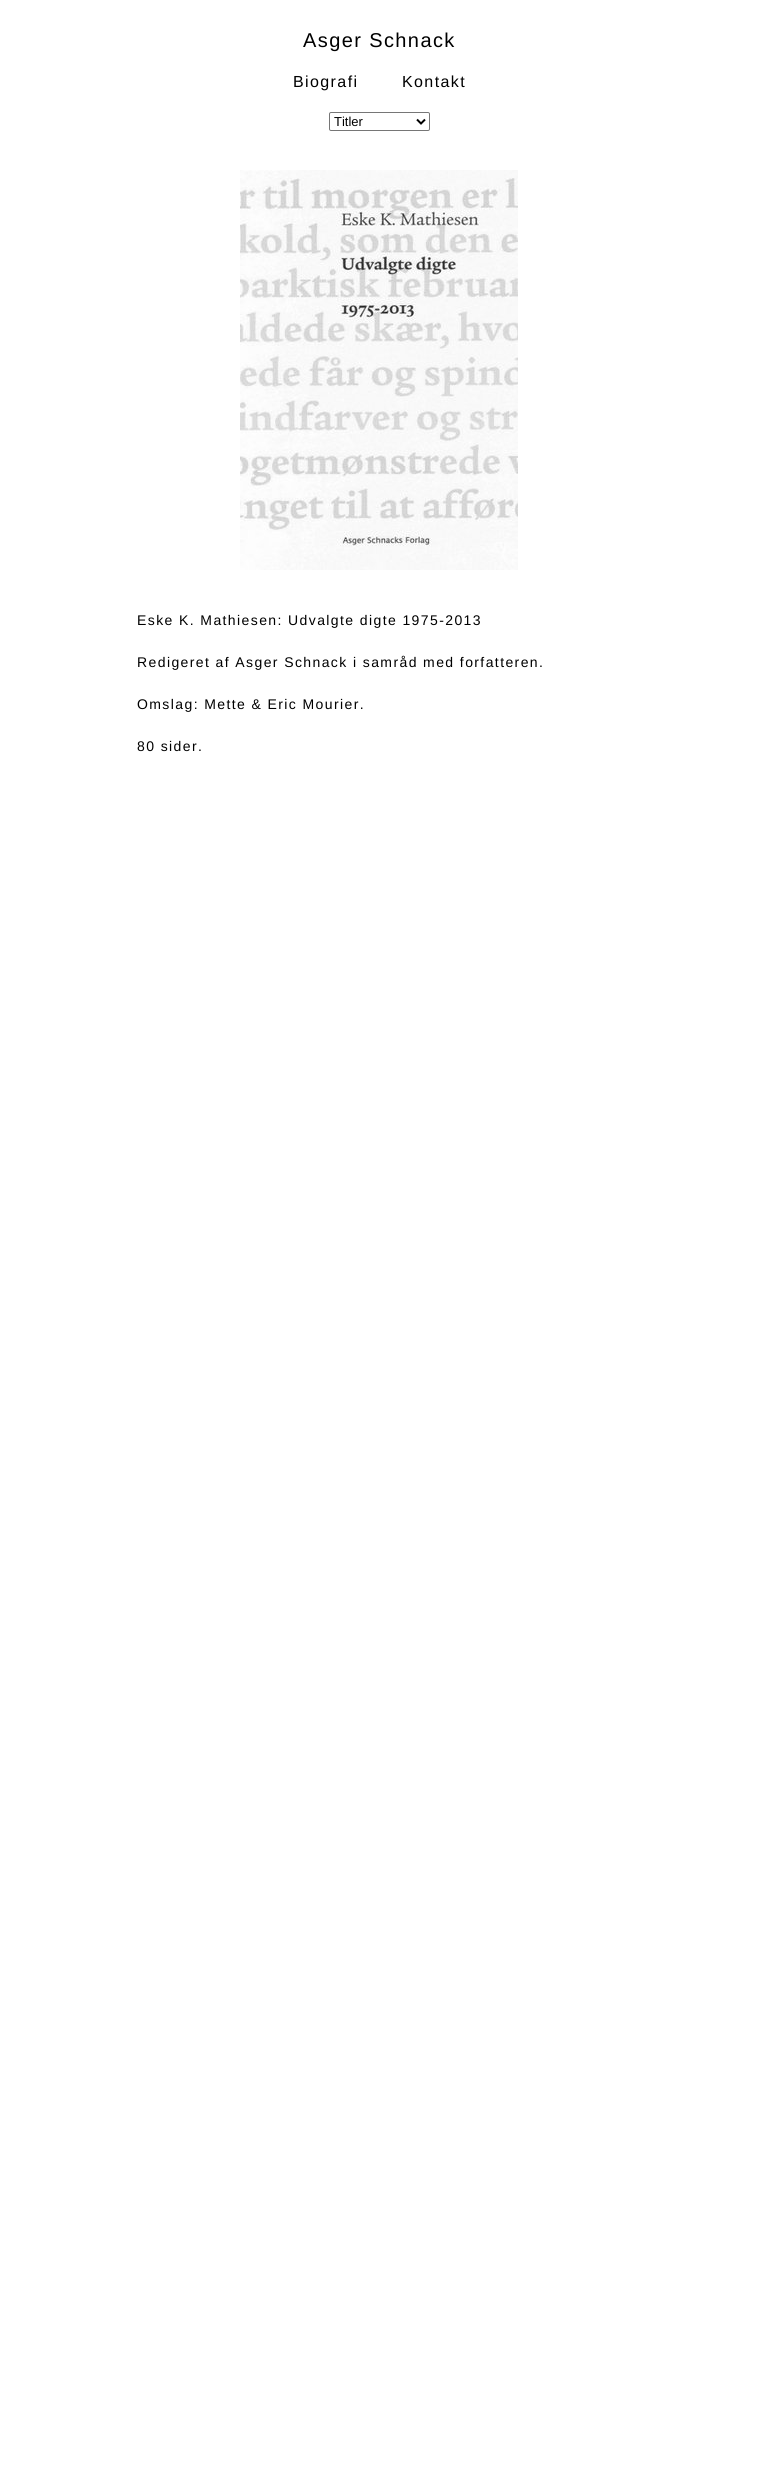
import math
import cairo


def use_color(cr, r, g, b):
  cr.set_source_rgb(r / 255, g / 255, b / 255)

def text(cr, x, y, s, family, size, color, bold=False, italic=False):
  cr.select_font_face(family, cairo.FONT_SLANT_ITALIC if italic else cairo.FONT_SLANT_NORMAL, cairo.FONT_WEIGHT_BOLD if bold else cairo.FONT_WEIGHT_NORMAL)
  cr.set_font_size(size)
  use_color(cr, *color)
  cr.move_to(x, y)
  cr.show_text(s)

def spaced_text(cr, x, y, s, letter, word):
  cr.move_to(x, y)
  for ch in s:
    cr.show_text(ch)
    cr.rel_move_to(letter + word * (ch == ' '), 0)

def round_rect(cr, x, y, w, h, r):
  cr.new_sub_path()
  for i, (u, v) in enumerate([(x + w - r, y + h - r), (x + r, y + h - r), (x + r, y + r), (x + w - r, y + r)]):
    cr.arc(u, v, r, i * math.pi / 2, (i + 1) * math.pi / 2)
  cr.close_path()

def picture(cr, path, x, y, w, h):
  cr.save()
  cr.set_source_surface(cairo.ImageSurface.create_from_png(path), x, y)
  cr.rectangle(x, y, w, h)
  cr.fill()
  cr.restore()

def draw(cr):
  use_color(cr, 255, 255, 255)
  cr.paint()
  round_rect(cr, 329.5, 112.5, 100, 18, 1.5)
  use_color(cr, 118, 118, 118)
  cr.set_line_width(1)
  cr.stroke()
  cr.new_path()
  cr.move_to(417, 119.5)
  cr.line_to(421, 123.5)
  cr.line_to(425, 119.5)
  use_color(cr, 0, 0, 0)
  cr.set_line_width(2)
  cr.stroke()
  picture(cr, "img_01.png", 240, 170, 278, 400)
  cr.select_font_face("Liberation Sans")
  cr.set_font_size(20)
  spaced_text(cr, 303, 47, "Asger Schnack", 1.4, 0)
  cr.set_font_size(16)
  spaced_text(cr, 293, 87, "Biografi", 1.4, 0)
  spaced_text(cr, 402, 87, "Kontakt", 1.4, 0)
  text(cr, 334, 126, "Titler", "Liberation Sans", 13, (0, 0, 0))
  cr.set_font_size(14)
  spaced_text(cr, 137, 625, "Eske K. Mathiesen: Udvalgte digte 1975-2013", 1.4, 0)
  spaced_text(cr, 137, 667, "Redigeret af Asger Schnack i samråd med forfatteren.", 1.4, 0)
  spaced_text(cr, 137, 709, "Omslag: Mette & Eric Mourier.", 1.4, 0)
  spaced_text(cr, 137, 751, "80 sider.", 1.4, 0)


surface = cairo.ImageSurface(cairo.FORMAT_RGB24, 759, 2474)
cr = cairo.Context(surface)
options = cairo.FontOptions()
options.set_hint_metrics(cairo.HINT_METRICS_OFF)
options.set_hint_style(cairo.HINT_STYLE_NONE)
cr.set_font_options(options)
cr.set_miter_limit(4)
draw(cr)
surface.write_to_png("out.png")
